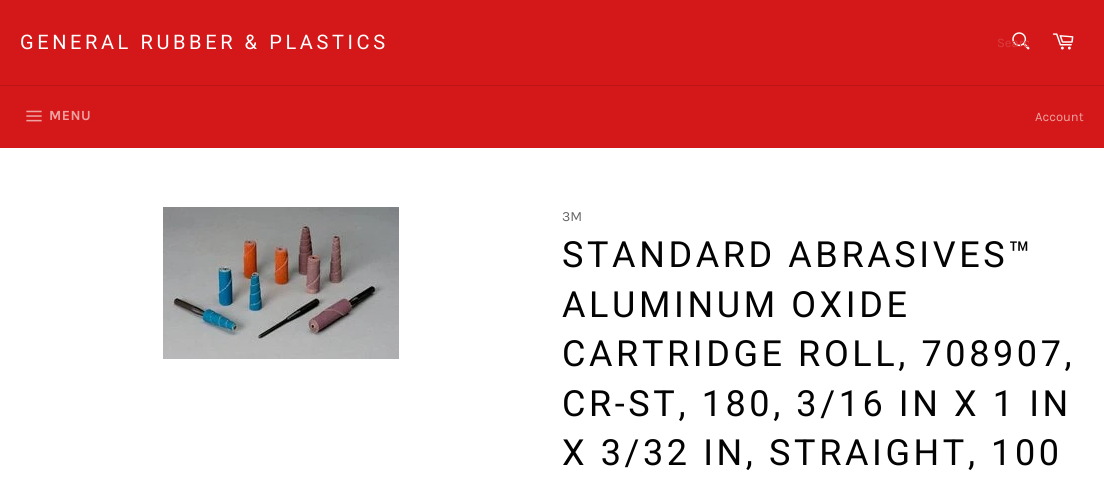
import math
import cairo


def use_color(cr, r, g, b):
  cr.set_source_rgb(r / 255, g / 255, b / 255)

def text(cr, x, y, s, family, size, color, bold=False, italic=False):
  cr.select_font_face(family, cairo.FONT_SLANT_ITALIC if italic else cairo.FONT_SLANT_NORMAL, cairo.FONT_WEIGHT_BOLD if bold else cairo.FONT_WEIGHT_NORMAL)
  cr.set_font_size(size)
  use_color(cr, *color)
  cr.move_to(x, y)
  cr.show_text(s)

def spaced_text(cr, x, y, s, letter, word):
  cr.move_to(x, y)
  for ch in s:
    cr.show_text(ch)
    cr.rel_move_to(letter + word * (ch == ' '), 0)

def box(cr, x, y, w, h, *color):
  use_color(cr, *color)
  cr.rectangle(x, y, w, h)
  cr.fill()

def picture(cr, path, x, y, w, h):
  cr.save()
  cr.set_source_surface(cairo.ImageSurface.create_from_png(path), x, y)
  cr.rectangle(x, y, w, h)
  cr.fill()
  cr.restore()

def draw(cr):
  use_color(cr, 212, 24, 25)
  cr.paint()
  picture(cr, "img_01.png", 1012, 32, 18, 18)
  picture(cr, "img_02.png", 1052, 33, 22, 17)
  box(cr, 0, 85, 1104, 1, 189, 21, 22)
  picture(cr, "img_03.png", 26, 110, 16, 12)
  box(cr, 0, 148, 1104, 342, 255, 255, 255)
  picture(cr, "img_04.png", 163, 207, 236, 152)
  cr.select_font_face("Roboto")
  cr.set_font_size(20)
  spaced_text(cr, 20, 49, "GENERAL RUBBER & PLASTICS", 3.6, 0)
  text(cr, 997, 47, "Searc", "Karla", 13, (219, 61, 62))
  cr.select_font_face("Karla", cairo.FONT_SLANT_NORMAL, cairo.FONT_WEIGHT_BOLD)
  cr.set_font_size(14)
  use_color(cr, 238, 163, 163)
  spaced_text(cr, 49, 120, "MENU", 0.5, 0)
  text(cr, 1035, 121, "Account", "Karla", 13, (238, 163, 163))
  text(cr, 562, 221, "3M", "Karla", 14, (102, 102, 102))
  cr.select_font_face("Roboto")
  cr.set_font_size(36)
  use_color(cr, 3, 3, 3)
  spaced_text(cr, 562, 267, "STANDARD ABRASIVES™", 3.6, 0)
  spaced_text(cr, 562, 317, "ALUMINUM OXIDE", 3.6, 0)
  spaced_text(cr, 562, 366, "CARTRIDGE ROLL, 708907,", 3.6, 0)
  spaced_text(cr, 562, 416, "CR-ST, 180, 3/16 IN X 1 IN", 3.6, 0)
  spaced_text(cr, 562, 465, "X 3/32 IN, STRAIGHT, 100", 3.6, 0)


surface = cairo.ImageSurface(cairo.FORMAT_RGB24, 1104, 490)
cr = cairo.Context(surface)
options = cairo.FontOptions()
options.set_hint_metrics(cairo.HINT_METRICS_OFF)
options.set_hint_style(cairo.HINT_STYLE_NONE)
cr.set_font_options(options)
cr.set_miter_limit(4)
draw(cr)
surface.write_to_png("out.png")
